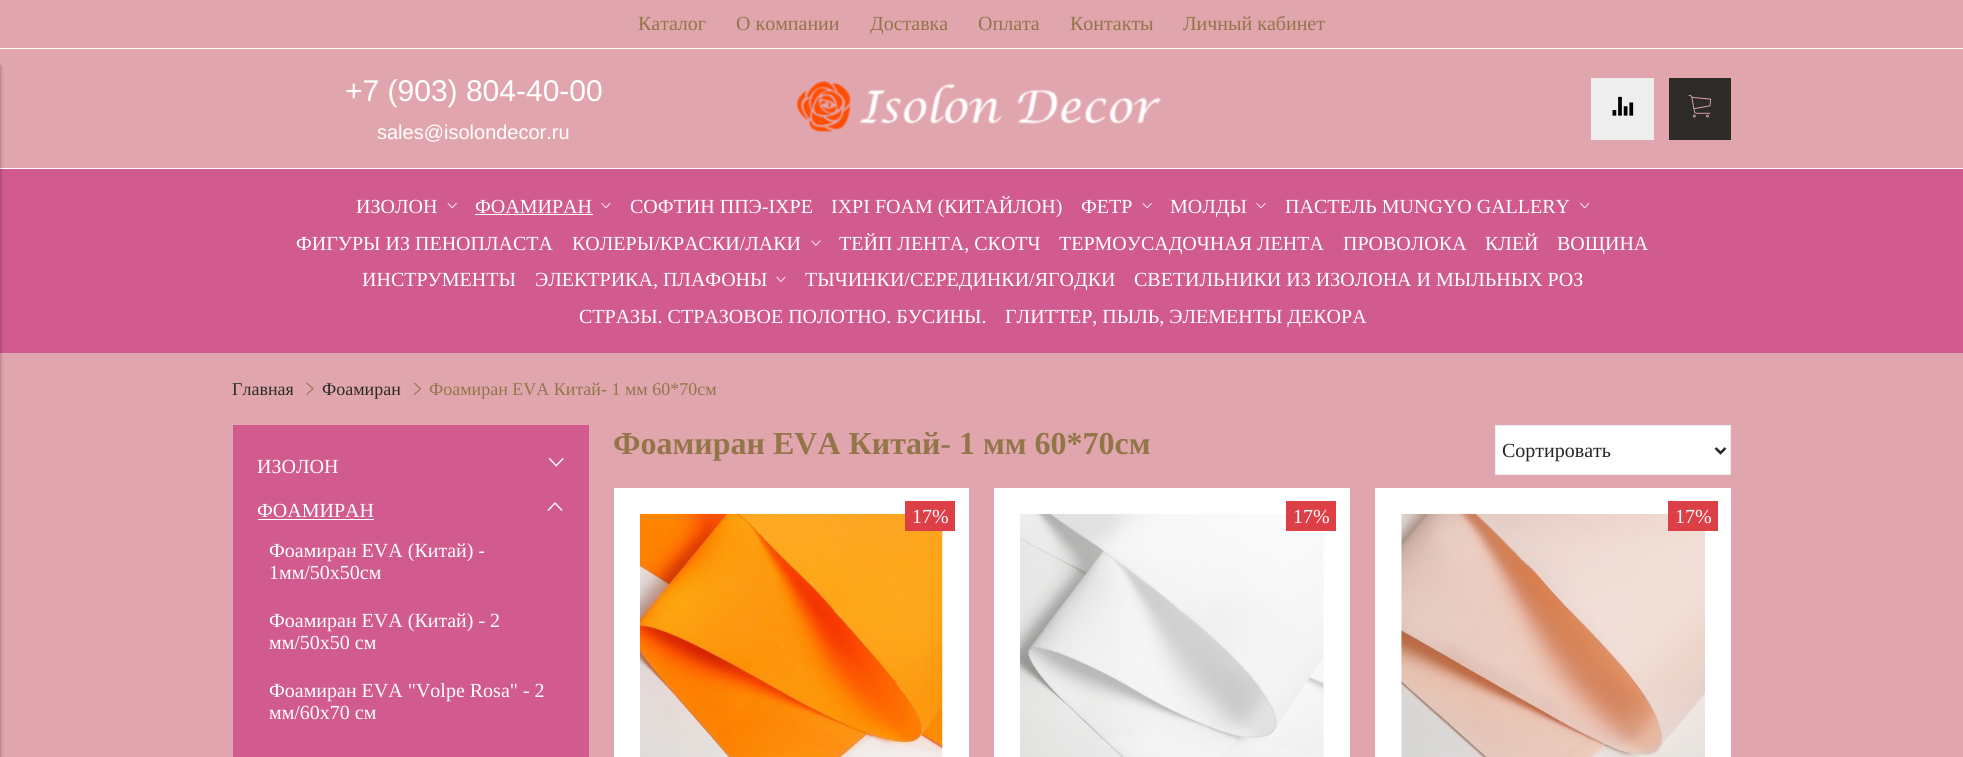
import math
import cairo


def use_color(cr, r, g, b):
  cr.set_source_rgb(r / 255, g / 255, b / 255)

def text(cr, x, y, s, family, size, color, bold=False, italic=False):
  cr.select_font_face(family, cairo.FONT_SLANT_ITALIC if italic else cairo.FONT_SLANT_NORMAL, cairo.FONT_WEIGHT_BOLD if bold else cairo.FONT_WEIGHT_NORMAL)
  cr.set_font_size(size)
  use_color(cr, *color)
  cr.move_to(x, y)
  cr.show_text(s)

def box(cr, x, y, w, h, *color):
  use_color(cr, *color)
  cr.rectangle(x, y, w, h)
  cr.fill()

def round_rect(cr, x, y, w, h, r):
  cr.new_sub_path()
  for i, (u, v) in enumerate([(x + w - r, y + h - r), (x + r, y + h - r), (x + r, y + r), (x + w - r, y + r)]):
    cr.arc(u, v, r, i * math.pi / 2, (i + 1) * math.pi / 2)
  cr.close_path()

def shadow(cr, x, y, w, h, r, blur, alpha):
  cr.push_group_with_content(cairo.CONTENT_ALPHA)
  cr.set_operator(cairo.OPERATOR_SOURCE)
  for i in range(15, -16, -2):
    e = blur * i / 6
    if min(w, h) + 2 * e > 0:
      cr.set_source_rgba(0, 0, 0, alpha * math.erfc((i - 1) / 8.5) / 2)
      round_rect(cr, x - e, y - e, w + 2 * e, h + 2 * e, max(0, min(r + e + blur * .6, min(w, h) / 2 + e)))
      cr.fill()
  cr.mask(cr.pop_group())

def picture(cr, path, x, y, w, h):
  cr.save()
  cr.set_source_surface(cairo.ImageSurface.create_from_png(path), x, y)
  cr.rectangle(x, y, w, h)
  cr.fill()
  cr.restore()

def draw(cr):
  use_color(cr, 225, 166, 173)
  cr.paint()
  box(cr, 0, 168, 1963, 1, 255, 255, 255)
  box(cr, 0, 169, 1963, 184, 209, 91, 143)
  use_color(cr, 0, 0, 0)
  shadow(cr, -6, 66, 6, 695, 0, 2, 0.4)
  box(cr, 0, 48, 1963, 1, 255, 255, 255)
  picture(cr, "img_01.png", 796, 81, 366, 52)
  box(cr, 1591, 78, 63, 62, 238, 238, 238)
  picture(cr, "img_02.png", 1612, 96, 22, 20)
  box(cr, 1669, 78, 62, 62, 44, 43, 39)
  picture(cr, "img_03.png", 1688, 95, 24, 23)
  picture(cr, "img_04.png", 447, 202, 10, 7)
  box(cr, 475, 214, 118, 1, 255, 255, 255)
  picture(cr, "img_05.png", 601, 202, 10, 7)
  picture(cr, "img_04.png", 1142, 202, 10, 7)
  picture(cr, "img_05.png", 1256, 202, 10, 7)
  picture(cr, "img_06.png", 1580, 202, 10, 7)
  picture(cr, "img_07.png", 811, 240, 10, 6)
  picture(cr, "img_08.png", 776, 276, 10, 7)
  picture(cr, "img_09.png", 306, 382, 8, 13)
  picture(cr, "img_10.png", 413, 382, 9, 13)
  box(cr, 233, 425, 356, 332, 209, 91, 143)
  picture(cr, "img_11.png", 548, 457, 16, 10)
  box(cr, 258, 519, 116, 1, 255, 255, 255)
  picture(cr, "img_12.png", 547, 502, 16, 9)
  cr.rectangle(1495.5, 425.5, 235, 49)
  cr.fill_preserve()
  use_color(cr, 238, 238, 238)
  cr.set_line_width(1)
  cr.stroke()
  cr.new_path()
  cr.move_to(1715.5, 448)
  cr.line_to(1720.5, 453)
  cr.line_to(1725.5, 448)
  use_color(cr, 37, 37, 37)
  cr.set_line_width(2.5)
  cr.stroke()
  box(cr, 614, 488, 355, 269, 255, 255, 255)
  picture(cr, "img_13.png", 640, 513, 303, 244)
  box(cr, 905, 501, 50, 30, 221, 63, 70)
  box(cr, 994, 488, 356, 269, 255, 255, 255)
  picture(cr, "img_14.png", 1020, 513, 304, 244)
  box(cr, 1286, 501, 50, 30, 221, 63, 70)
  box(cr, 1375, 488, 356, 269, 255, 255, 255)
  picture(cr, "img_15.png", 1401, 513, 304, 244)
  box(cr, 1668, 501, 50, 30, 221, 63, 70)
  text(cr, 638, 30, "Каталог", "Liberation Serif", 20, (146, 117, 73))
  text(cr, 736, 30, "О компании", "Liberation Serif", 20, (146, 117, 73))
  text(cr, 870, 30, "Доставка", "Liberation Serif", 20, (146, 117, 73))
  text(cr, 978, 30, "Оплата", "Liberation Serif", 20, (146, 117, 73))
  text(cr, 1070, 30, "Контакты", "Liberation Serif", 20, (146, 117, 73))
  text(cr, 1183, 30, "Личный кабинет", "Liberation Serif", 20, (146, 117, 73))
  text(cr, 345, 101, "+7 (903) 804-40-00", "Liberation Sans", 30, (255, 255, 255))
  text(cr, 377, 139, "sales@isolondecor.ru", "Liberation Sans", 20, (255, 255, 255))
  text(cr, 356, 213, "ИЗОЛОН", "Liberation Serif", 20, (255, 255, 255))
  text(cr, 475, 213, "ФОАМИРАН", "Liberation Serif", 20, (255, 255, 255))
  text(cr, 630, 213, "СОФТИН ППЭ-IXPE", "Liberation Serif", 20, (255, 255, 255))
  text(cr, 831, 213, "IXPI FOAM (КИТАЙЛОН)", "Liberation Serif", 20, (255, 255, 255))
  text(cr, 1081, 213, "ФЕТР", "Liberation Serif", 20, (255, 255, 255))
  text(cr, 1170, 213, "МОЛДЫ", "Liberation Serif", 20, (255, 255, 255))
  text(cr, 1285, 213, "ПАСТЕЛЬ MUNGYO GALLERY", "Liberation Serif", 20, (255, 255, 255))
  text(cr, 296, 250, "ФИГУРЫ ИЗ ПЕНОПЛАСТА", "Liberation Serif", 20, (255, 255, 255))
  text(cr, 572, 250, "КОЛЕРЫ/КРАСКИ/ЛАКИ", "Liberation Serif", 20, (255, 255, 255))
  text(cr, 839, 250, "ТЕЙП ЛЕНТА, СКОТЧ", "Liberation Serif", 20, (255, 255, 255))
  text(cr, 1059, 250, "ТЕРМОУСАДОЧНАЯ ЛЕНТА", "Liberation Serif", 20, (255, 255, 255))
  text(cr, 1343, 250, "ПРОВОЛОКА", "Liberation Serif", 20, (255, 255, 255))
  text(cr, 1485, 250, "КЛЕЙ", "Liberation Serif", 20, (255, 255, 255))
  text(cr, 1557, 250, "ВОЩИНА", "Liberation Serif", 20, (255, 255, 255))
  text(cr, 362, 286, "ИНСТРУМЕНТЫ", "Liberation Serif", 20, (255, 255, 255))
  text(cr, 535, 286, "ЭЛЕКТРИКА, ПЛАФОНЫ", "Liberation Serif", 20, (255, 255, 255))
  text(cr, 805, 286, "ТЫЧИНКИ/СЕРЕДИНКИ/ЯГОДКИ", "Liberation Serif", 20, (255, 255, 255))
  text(cr, 1134, 286, "СВЕТИЛЬНИКИ ИЗ ИЗОЛОНА И МЫЛЬНЫХ РОЗ", "Liberation Serif", 20, (255, 255, 255))
  text(cr, 579, 323, "СТРАЗЫ. СТРАЗОВОЕ ПОЛОТНО. БУСИНЫ.", "Liberation Serif", 20, (255, 255, 255))
  text(cr, 1005, 323, "ГЛИТТЕР, ПЫЛЬ, ЭЛЕМЕНТЫ ДЕКОРА", "Liberation Serif", 20, (255, 255, 255))
  text(cr, 232, 395, "Главная", "Liberation Serif", 18, (44, 43, 39))
  text(cr, 322, 395, "Фоамиран", "Liberation Serif", 18, (44, 43, 39))
  text(cr, 429, 395, "Фоамиран EVA Китай- 1 мм 60*70см", "Liberation Serif", 18, (146, 117, 73))
  text(cr, 257, 473, "ИЗОЛОН", "Liberation Serif", 20, (255, 255, 255))
  text(cr, 257, 517, "ФОАМИРАН", "Liberation Serif", 20, (255, 255, 255))
  text(cr, 269, 557, "Фоамиран EVA (Китай) -", "Liberation Serif", 20, (255, 255, 255))
  text(cr, 269, 579, "1мм/50х50см", "Liberation Serif", 20, (255, 255, 255))
  text(cr, 269, 627, "Фоамиран EVA (Китай) - 2", "Liberation Serif", 20, (255, 255, 255))
  text(cr, 269, 649, "мм/50x50 см", "Liberation Serif", 20, (255, 255, 255))
  text(cr, 269, 697, "Фоамиран EVA \"Volpe Rosa\" - 2", "Liberation Serif", 20, (255, 255, 255))
  text(cr, 269, 719, "мм/60х70 см", "Liberation Serif", 20, (255, 255, 255))
  text(cr, 613, 454, "Фоамиран EVA Китай- 1 мм 60*70см", "Liberation Serif", 32, (146, 117, 73), bold=True)
  text(cr, 1502, 457, "Сортировать", "Liberation Serif", 20, (37, 37, 37))
  text(cr, 912, 523, "17%", "Liberation Serif", 20, (255, 255, 255))
  text(cr, 1293, 523, "17%", "Liberation Serif", 20, (255, 255, 255))
  text(cr, 1675, 523, "17%", "Liberation Serif", 20, (255, 255, 255))


surface = cairo.ImageSurface(cairo.FORMAT_RGB24, 1963, 757)
cr = cairo.Context(surface)
options = cairo.FontOptions()
options.set_hint_metrics(cairo.HINT_METRICS_OFF)
options.set_hint_style(cairo.HINT_STYLE_NONE)
cr.set_font_options(options)
cr.set_miter_limit(4)
draw(cr)
surface.write_to_png("out.png")
